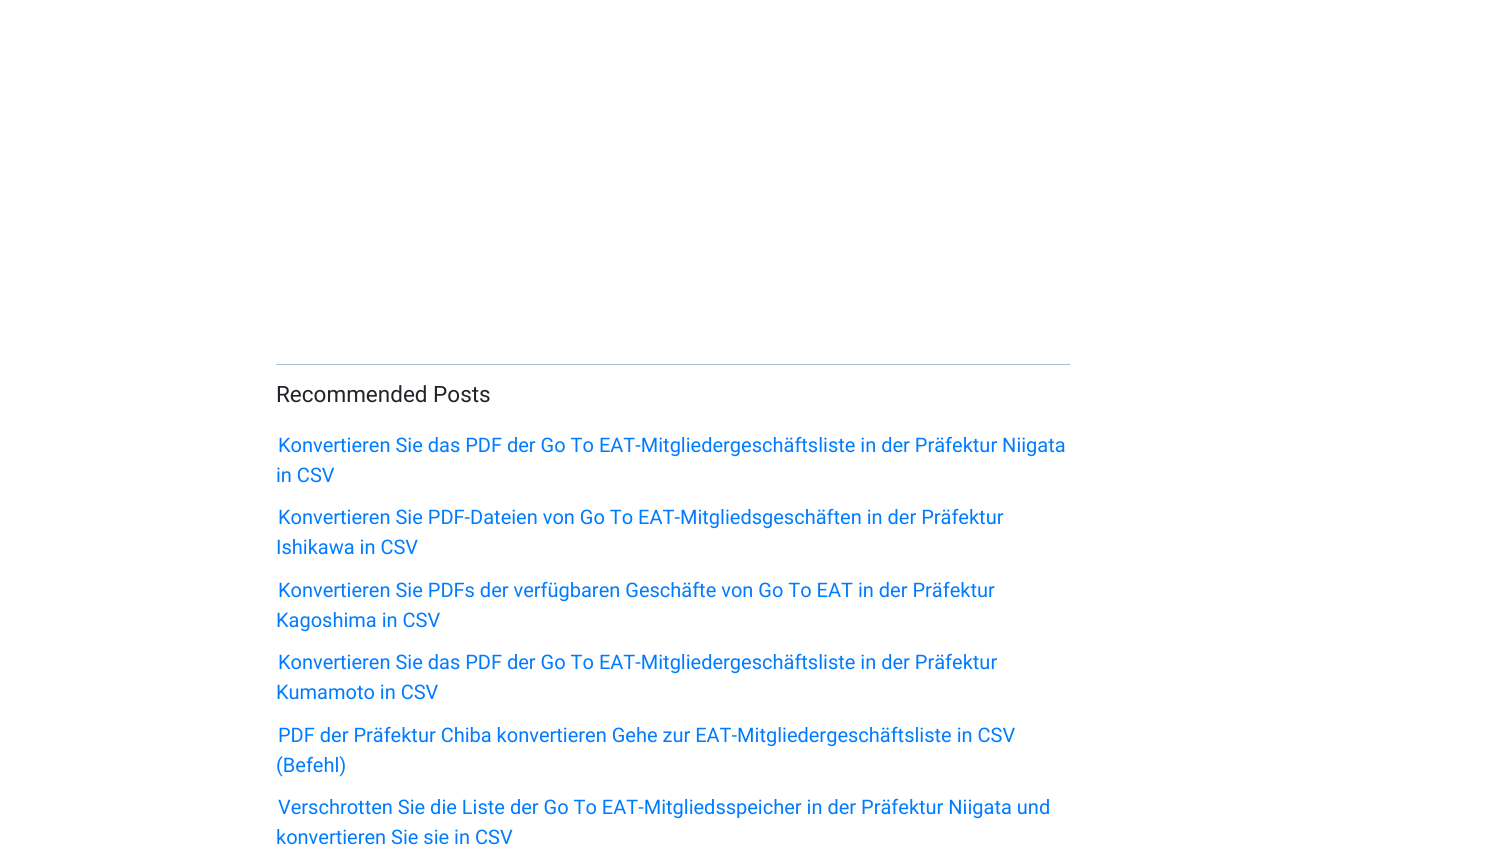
import math
import cairo


def use_color(cr, r, g, b):
  cr.set_source_rgb(r / 255, g / 255, b / 255)

def text(cr, x, y, s, family, size, color, bold=False, italic=False):
  cr.select_font_face(family, cairo.FONT_SLANT_ITALIC if italic else cairo.FONT_SLANT_NORMAL, cairo.FONT_WEIGHT_BOLD if bold else cairo.FONT_WEIGHT_NORMAL)
  cr.set_font_size(size)
  use_color(cr, *color)
  cr.move_to(x, y)
  cr.show_text(s)

def box(cr, x, y, w, h, *color):
  use_color(cr, *color)
  cr.rectangle(x, y, w, h)
  cr.fill()

def draw(cr):
  use_color(cr, 255, 255, 255)
  cr.paint()
  box(cr, 276, 364, 794, 1, 172, 192, 216)
  text(cr, 276, 402, "Recommended Posts", "Roboto", 22.5, (33, 37, 41))
  text(cr, 278, 452, "Konvertieren Sie das PDF der Go To EAT-Mitgliedergeschäftsliste in der Präfektur Niigata", "Roboto", 20, (0, 123, 255))
  text(cr, 276, 482, "in CSV", "Roboto", 20, (0, 123, 255))
  text(cr, 278, 524, "Konvertieren Sie PDF-Dateien von Go To EAT-Mitgliedsgeschäften in der Präfektur", "Roboto", 20, (0, 123, 255))
  text(cr, 276, 554, "Ishikawa in CSV", "Roboto", 20, (0, 123, 255))
  text(cr, 278, 597, "Konvertieren Sie PDFs der verfügbaren Geschäfte von Go To EAT in der Präfektur", "Roboto", 20, (0, 123, 255))
  text(cr, 276, 627, "Kagoshima in CSV", "Roboto", 20, (0, 123, 255))
  text(cr, 278, 669, "Konvertieren Sie das PDF der Go To EAT-Mitgliedergeschäftsliste in der Präfektur", "Roboto", 20, (0, 123, 255))
  text(cr, 276, 699, "Kumamoto in CSV", "Roboto", 20, (0, 123, 255))
  text(cr, 278, 742, "PDF der Präfektur Chiba konvertieren Gehe zur EAT-Mitgliedergeschäftsliste in CSV", "Roboto", 20, (0, 123, 255))
  text(cr, 276, 772, "(Befehl)", "Roboto", 20, (0, 123, 255))
  text(cr, 278, 814, "Verschrotten Sie die Liste der Go To EAT-Mitgliedsspeicher in der Präfektur Niigata und", "Roboto", 20, (0, 123, 255))
  text(cr, 276, 844, "konvertieren Sie sie in CSV", "Roboto", 20, (0, 123, 255))


surface = cairo.ImageSurface(cairo.FORMAT_RGB24, 1512, 851)
cr = cairo.Context(surface)
options = cairo.FontOptions()
options.set_hint_metrics(cairo.HINT_METRICS_OFF)
options.set_hint_style(cairo.HINT_STYLE_NONE)
cr.set_font_options(options)
cr.set_miter_limit(4)
draw(cr)
surface.write_to_png("out.png")
